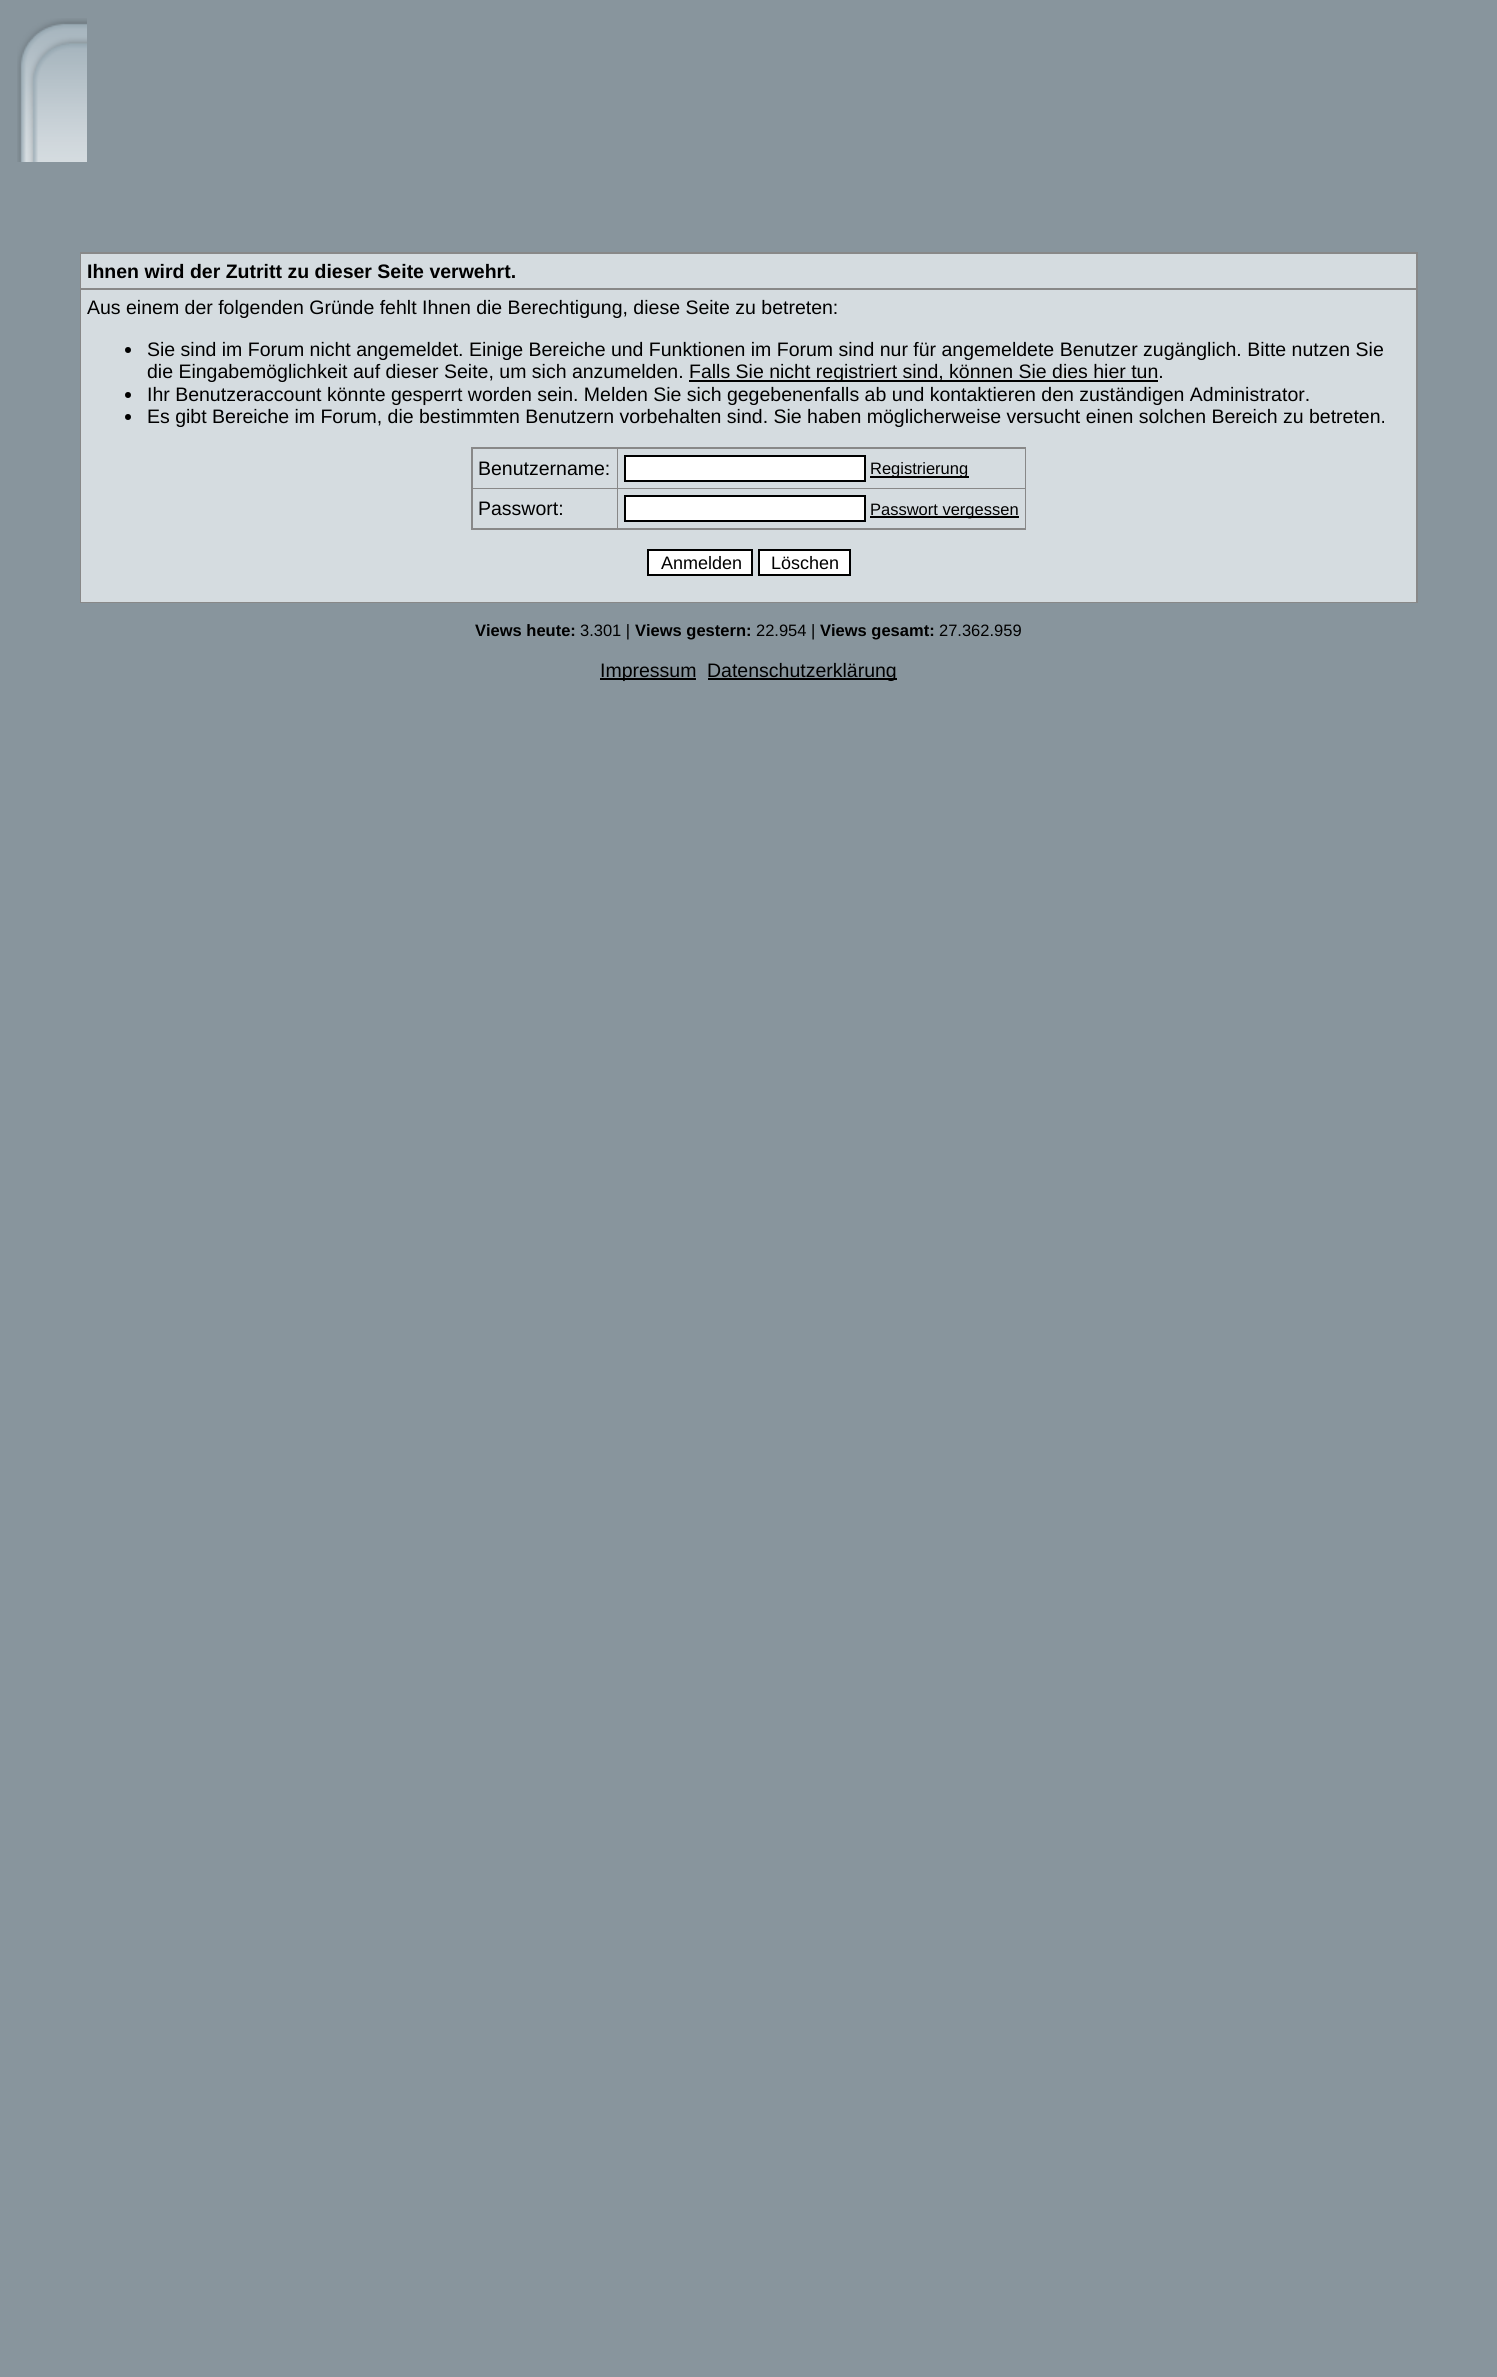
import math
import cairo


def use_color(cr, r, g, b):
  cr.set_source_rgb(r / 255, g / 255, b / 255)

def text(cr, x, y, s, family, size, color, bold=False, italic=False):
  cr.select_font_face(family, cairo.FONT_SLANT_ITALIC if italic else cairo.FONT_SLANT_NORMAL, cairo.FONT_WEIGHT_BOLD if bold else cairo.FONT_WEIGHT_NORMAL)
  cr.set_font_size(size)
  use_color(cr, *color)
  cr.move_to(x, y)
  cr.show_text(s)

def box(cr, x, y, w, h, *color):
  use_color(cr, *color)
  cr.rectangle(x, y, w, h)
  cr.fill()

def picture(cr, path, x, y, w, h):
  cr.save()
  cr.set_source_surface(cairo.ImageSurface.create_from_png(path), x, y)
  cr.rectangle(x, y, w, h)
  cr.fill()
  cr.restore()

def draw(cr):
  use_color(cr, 136, 149, 157)
  cr.paint()
  picture(cr, "img_01.png", 17, 18, 70, 144)
  box(cr, 80, 252, 1338, 351, 136, 136, 136)
  box(cr, 81, 254, 1335, 34, 213, 220, 224)
  box(cr, 81, 290, 1335, 312, 213, 220, 224)
  use_color(cr, 0, 0, 0)
  cr.arc(128, 350, 3, 0, 2 * math.pi)
  cr.fill()
  box(cr, 689, 380, 469, 2, 0, 0, 0)
  cr.arc(128, 395, 3, 0, 2 * math.pi)
  cr.fill()
  cr.arc(128, 417, 3, 0, 2 * math.pi)
  cr.fill()
  box(cr, 471, 447, 555, 83, 136, 136, 136)
  box(cr, 473, 449, 144, 39, 213, 220, 224)
  box(cr, 618, 449, 407, 39, 213, 220, 224)
  use_color(cr, 255, 255, 255)
  cr.rectangle(625, 456, 240, 25)
  cr.fill_preserve()
  use_color(cr, 0, 0, 0)
  cr.stroke()
  box(cr, 870, 476, 99, 2, 0, 0, 0)
  box(cr, 473, 489, 144, 39, 213, 220, 224)
  box(cr, 618, 489, 407, 39, 213, 220, 224)
  use_color(cr, 255, 255, 255)
  cr.rectangle(625, 496, 240, 25)
  cr.fill_preserve()
  use_color(cr, 0, 0, 0)
  cr.stroke()
  box(cr, 870, 516, 149, 2, 0, 0, 0)
  use_color(cr, 255, 255, 255)
  cr.rectangle(648, 550, 104, 25)
  cr.fill_preserve()
  use_color(cr, 0, 0, 0)
  cr.stroke()
  use_color(cr, 255, 255, 255)
  cr.rectangle(759, 550, 91, 25)
  cr.fill_preserve()
  use_color(cr, 0, 0, 0)
  cr.stroke()
  box(cr, 600, 678, 96, 2, 0, 0, 0)
  box(cr, 708, 678, 189, 2, 0, 0, 0)
  text(cr, 87, 278, "Ihnen wird der Zutritt zu dieser Seite verwehrt.", "Liberation Sans", 19.5, (0, 0, 0), bold=True)
  text(cr, 87, 314, "Aus einem der folgenden Gründe fehlt Ihnen die Berechtigung, diese Seite zu betreten:", "Liberation Sans", 19.5, (0, 0, 0))
  text(cr, 147, 356, "Sie sind im Forum nicht angemeldet. Einige Bereiche und Funktionen im Forum sind nur für angemeldete Benutzer zugänglich. Bitte nutzen Sie", "Liberation Sans", 19.5, (0, 0, 0))
  text(cr, 147, 378, "die Eingabemöglichkeit auf dieser Seite, um sich anzumelden.", "Liberation Sans", 19.5, (0, 0, 0))
  text(cr, 689, 378, "Falls Sie nicht registriert sind, können Sie dies hier tun.", "Liberation Sans", 19.5, (0, 0, 0))
  text(cr, 147, 401, "Ihr Benutzeraccount könnte gesperrt worden sein. Melden Sie sich gegebenenfalls ab und kontaktieren den zuständigen Administrator.", "Liberation Sans", 19.5, (0, 0, 0))
  text(cr, 147, 423, "Es gibt Bereiche im Forum, die bestimmten Benutzern vorbehalten sind. Sie haben möglicherweise versucht einen solchen Bereich zu betreten.", "Liberation Sans", 19.5, (0, 0, 0))
  text(cr, 478, 475, "Benutzername:", "Liberation Sans", 19.5, (0, 0, 0))
  text(cr, 870, 474, "Registrierung", "Liberation Sans", 16.5, (0, 0, 0))
  text(cr, 478, 515, "Passwort:", "Liberation Sans", 19.5, (0, 0, 0))
  text(cr, 870, 515, "Passwort vergessen", "Liberation Sans", 16.5, (0, 0, 0))
  text(cr, 661, 569, "Anmelden", "Liberation Sans", 18, (0, 0, 0))
  text(cr, 771, 569, "Löschen", "Liberation Sans", 18, (0, 0, 0))
  text(cr, 475, 636, "Views heute:", "Liberation Sans", 16.5, (0, 0, 0), bold=True)
  text(cr, 580, 636, "3.301 |", "Liberation Sans", 16.5, (0, 0, 0))
  text(cr, 635, 636, "Views gestern:", "Liberation Sans", 16.5, (0, 0, 0), bold=True)
  text(cr, 756, 636, "22.954 |", "Liberation Sans", 16.5, (0, 0, 0))
  text(cr, 820, 636, "Views gesamt:", "Liberation Sans", 16.5, (0, 0, 0), bold=True)
  text(cr, 939, 636, "27.362.959", "Liberation Sans", 16.5, (0, 0, 0))
  text(cr, 600, 677, "Impressum", "Liberation Sans", 19.5, (0, 0, 0))
  text(cr, 707, 677, "Datenschutzerklärung", "Liberation Sans", 19.5, (0, 0, 0))


surface = cairo.ImageSurface(cairo.FORMAT_RGB24, 1497, 2377)
cr = cairo.Context(surface)
options = cairo.FontOptions()
options.set_hint_metrics(cairo.HINT_METRICS_OFF)
options.set_hint_style(cairo.HINT_STYLE_NONE)
cr.set_font_options(options)
cr.set_miter_limit(4)
draw(cr)
surface.write_to_png("out.png")
